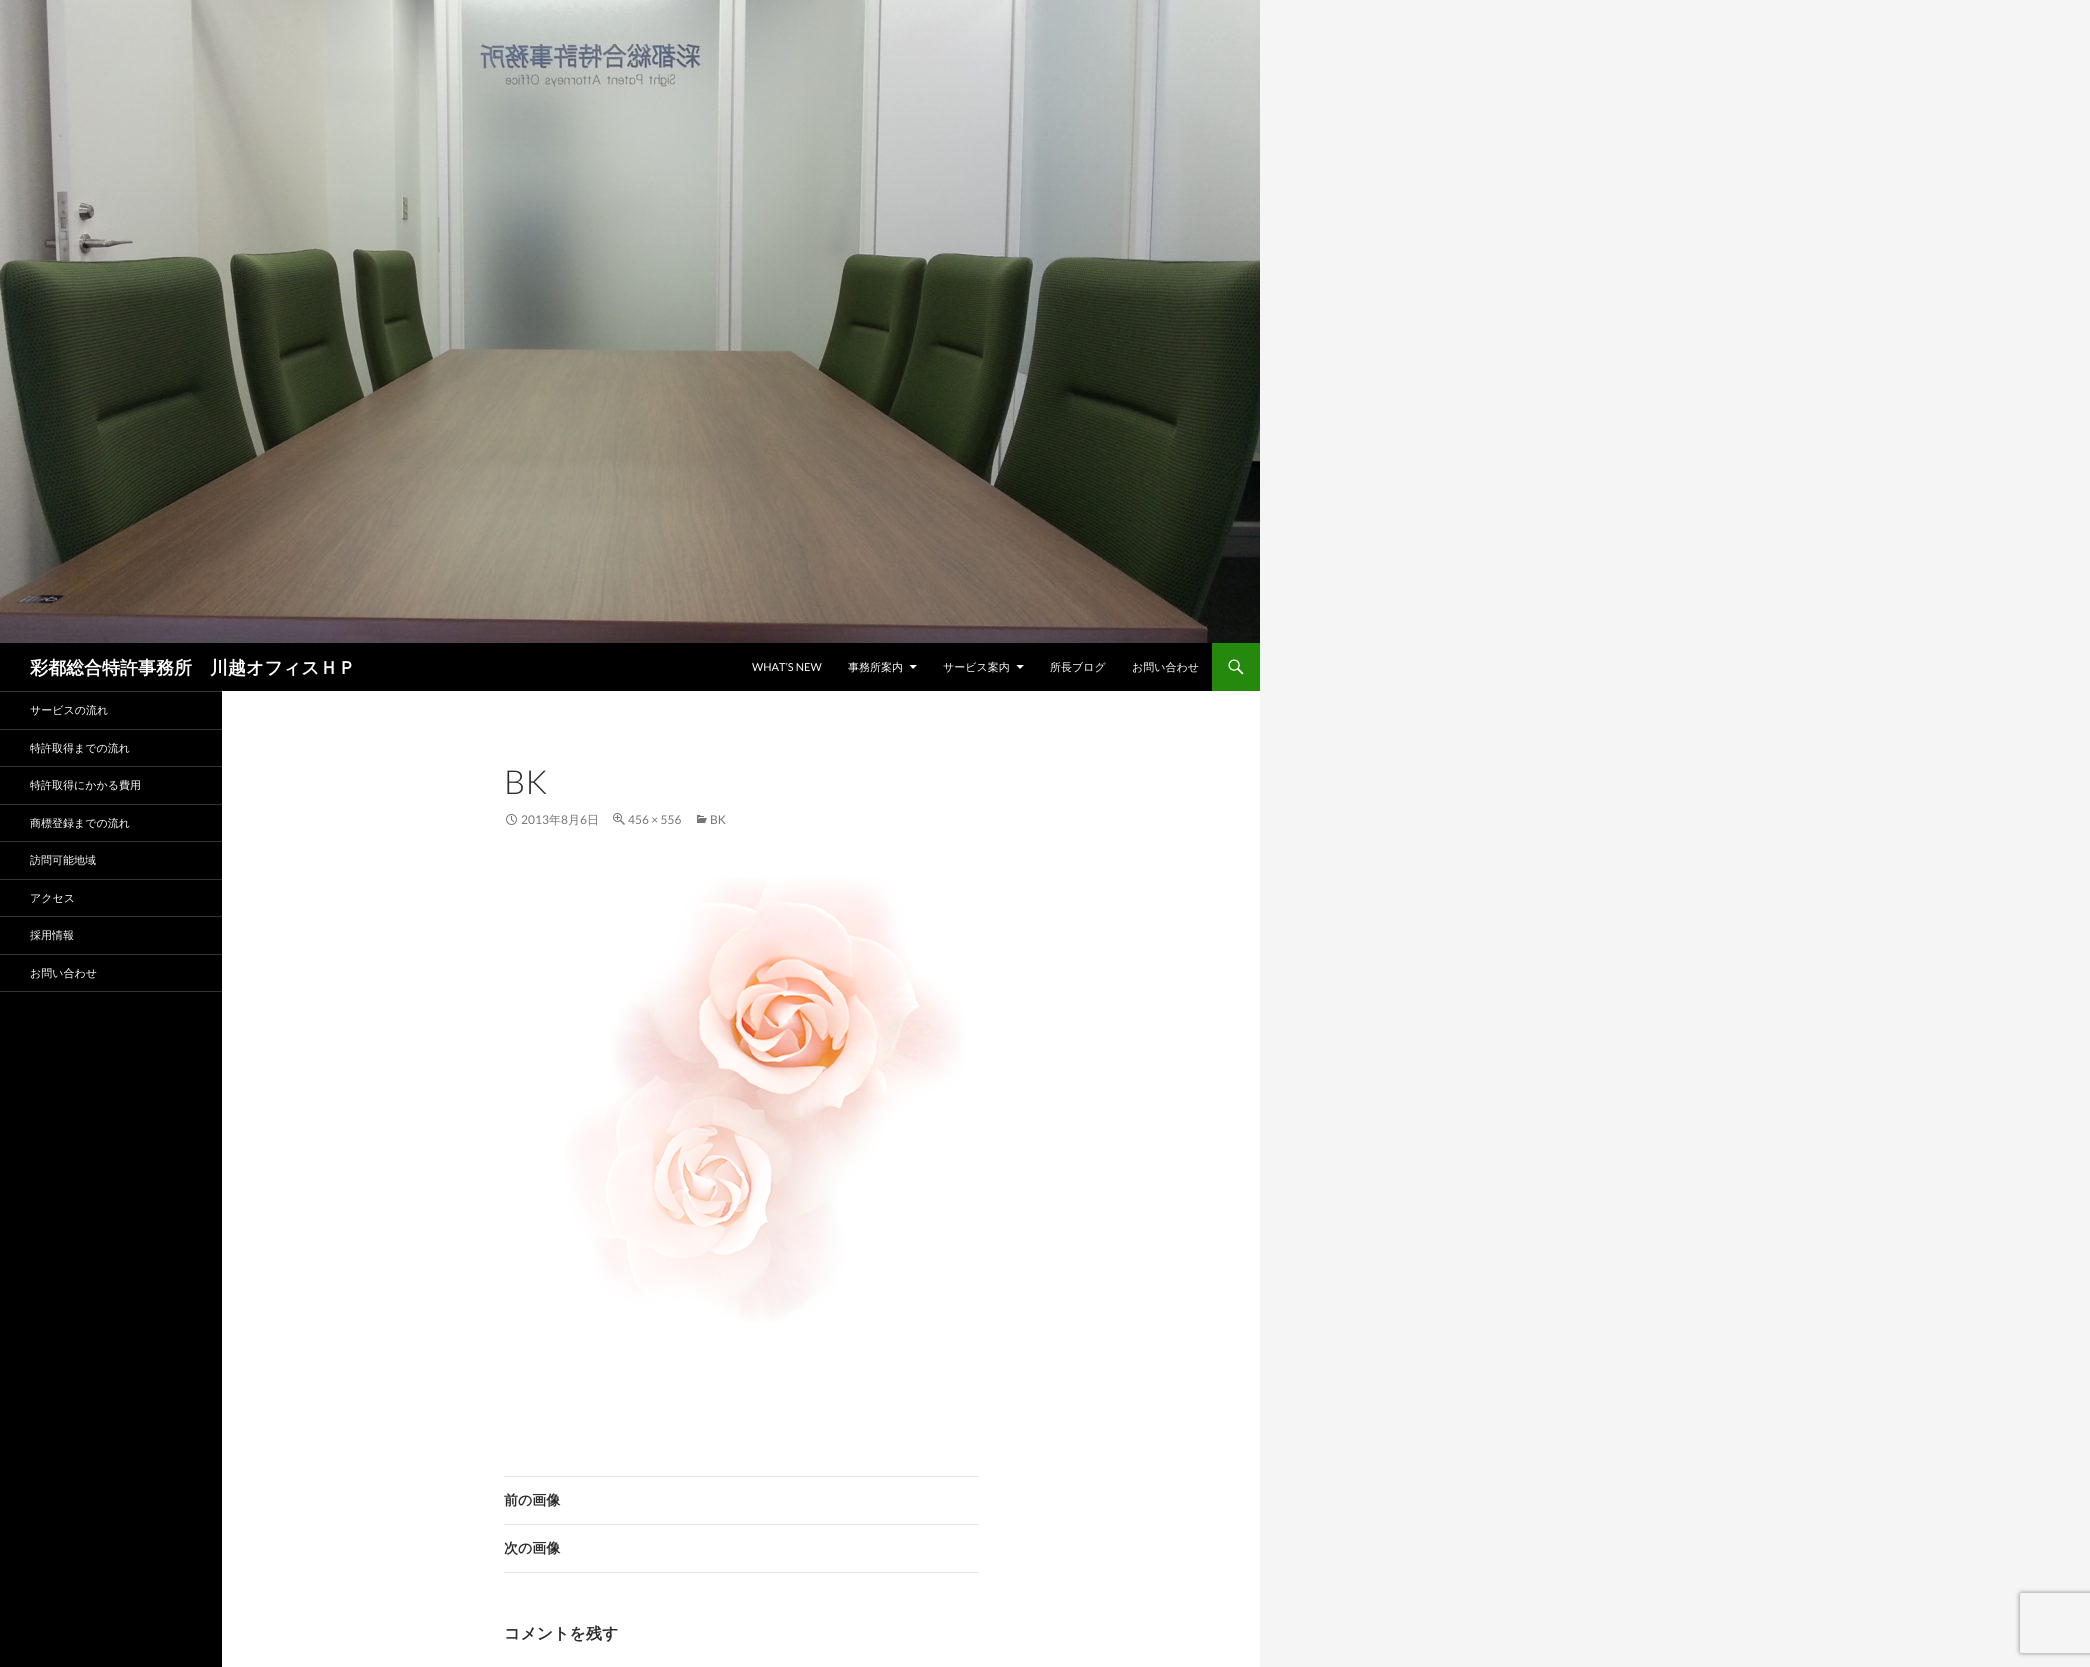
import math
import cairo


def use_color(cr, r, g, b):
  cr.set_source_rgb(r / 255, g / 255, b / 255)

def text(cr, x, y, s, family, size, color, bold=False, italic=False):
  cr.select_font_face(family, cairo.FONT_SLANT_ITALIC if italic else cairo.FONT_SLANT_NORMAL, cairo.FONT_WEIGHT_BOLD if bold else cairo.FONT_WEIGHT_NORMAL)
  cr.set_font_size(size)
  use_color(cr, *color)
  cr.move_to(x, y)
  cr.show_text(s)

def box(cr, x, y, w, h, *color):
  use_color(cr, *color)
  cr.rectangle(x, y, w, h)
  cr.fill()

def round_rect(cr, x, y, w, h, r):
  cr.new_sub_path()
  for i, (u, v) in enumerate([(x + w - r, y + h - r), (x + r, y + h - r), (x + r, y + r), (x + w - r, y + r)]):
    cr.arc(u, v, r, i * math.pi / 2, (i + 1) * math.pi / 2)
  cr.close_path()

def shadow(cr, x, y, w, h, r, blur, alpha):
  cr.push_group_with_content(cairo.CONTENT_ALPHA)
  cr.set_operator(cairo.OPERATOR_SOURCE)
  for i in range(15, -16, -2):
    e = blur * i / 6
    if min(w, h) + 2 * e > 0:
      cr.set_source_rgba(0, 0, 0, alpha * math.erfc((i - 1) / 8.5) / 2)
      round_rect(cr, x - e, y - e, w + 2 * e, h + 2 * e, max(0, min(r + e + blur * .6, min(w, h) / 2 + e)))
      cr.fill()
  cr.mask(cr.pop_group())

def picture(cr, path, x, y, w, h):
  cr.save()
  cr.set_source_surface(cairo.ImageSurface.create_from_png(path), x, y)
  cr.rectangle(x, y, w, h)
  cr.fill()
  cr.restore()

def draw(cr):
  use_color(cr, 245, 245, 245)
  cr.paint()
  box(cr, 222, 691, 1038, 976, 255, 255, 255)
  picture(cr, "img_01.png", 0, 0, 1260, 643)
  box(cr, 0, 643, 1212, 48, 0, 0, 0)
  use_color(cr, 255, 255, 255)
  cr.new_path()
  cr.move_to(909.5, 665)
  cr.line_to(913, 669)
  cr.line_to(917, 665)
  cr.close_path()
  cr.fill()
  cr.new_path()
  cr.move_to(1016.5, 665)
  cr.line_to(1020, 669)
  cr.line_to(1024, 665)
  cr.close_path()
  cr.fill()
  box(cr, 1212, 643, 48, 48, 36, 137, 13)
  picture(cr, "img_02.png", 1228, 659, 16, 16)
  box(cr, 0, 692, 222, 975, 0, 0, 0)
  box(cr, 0, 991, 222, 1, 51, 51, 51)
  box(cr, 0, 691, 222, 1, 51, 51, 51)
  box(cr, 0, 729, 222, 1, 51, 51, 51)
  box(cr, 0, 766, 222, 1, 51, 51, 51)
  box(cr, 0, 804, 222, 1, 51, 51, 51)
  box(cr, 0, 841, 222, 1, 51, 51, 51)
  box(cr, 0, 879, 222, 1, 51, 51, 51)
  box(cr, 0, 916, 222, 1, 51, 51, 51)
  box(cr, 0, 954, 222, 1, 51, 51, 51)
  picture(cr, "img_03.png", 506, 814, 11, 11)
  picture(cr, "img_04.png", 613, 813, 12, 12)
  picture(cr, "img_05.png", 697, 815, 10, 8)
  picture(cr, "img_06.png", 566, 877, 398, 446)
  box(cr, 504, 1476, 474, 1, 230, 230, 230)
  box(cr, 504, 1524, 474, 1, 230, 230, 230)
  box(cr, 504, 1572, 474, 1, 230, 230, 230)
  cr.save()
  cr.set_fill_rule(cairo.FILL_RULE_EVEN_ODD)
  cr.new_path()
  cr.move_to(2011, 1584)
  cr.line_to(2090, 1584)
  cr.line_to(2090, 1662)
  cr.line_to(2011, 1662)
  cr.close_path()
  cr.move_to(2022, 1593)
  cr.line_to(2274, 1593)
  cr.curve_to(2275, 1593, 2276, 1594, 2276, 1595)
  cr.line_to(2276, 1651)
  cr.curve_to(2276, 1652, 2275, 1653, 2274, 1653)
  cr.line_to(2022, 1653)
  cr.curve_to(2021, 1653, 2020, 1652, 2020, 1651)
  cr.line_to(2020, 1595)
  cr.curve_to(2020, 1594, 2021, 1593, 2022, 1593)
  cr.close_path()
  cr.clip()
  use_color(cr, 128, 128, 128)
  shadow(cr, 2020, 1593, 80, 60, 2, 2.5, 1)
  cr.restore()
  text(cr, 30, 674, "彩都総合特許事務所　川越オフィスＨＰ", "WenQuanYi Zen Hei", 18, (255, 255, 255), bold=True)
  text(cr, 752, 671, "WHAT’S NEW", "Lato", 11, (255, 255, 255))
  text(cr, 848, 671, "事務所案内", "WenQuanYi Zen Hei Medium", 11, (255, 255, 255))
  text(cr, 943, 671, "サービス案内", "WenQuanYi Zen Hei Medium", 11, (255, 255, 255))
  text(cr, 1050, 671, "所長ブログ", "WenQuanYi Zen Hei Medium", 11, (255, 255, 255))
  text(cr, 1132, 671, "お問い合わせ", "WenQuanYi Zen Hei Medium", 11, (255, 255, 255))
  text(cr, 30, 714, "サービスの流れ", "WenQuanYi Zen Hei Medium", 11, (255, 255, 255))
  text(cr, 30, 752, "特許取得までの流れ", "WenQuanYi Zen Hei Medium", 11, (255, 255, 255))
  text(cr, 30, 789, "特許取得にかかる費用", "WenQuanYi Zen Hei Medium", 11, (255, 255, 255))
  text(cr, 30, 827, "商標登録までの流れ", "WenQuanYi Zen Hei Medium", 11, (255, 255, 255))
  text(cr, 30, 864, "訪問可能地域", "WenQuanYi Zen Hei Medium", 11, (255, 255, 255))
  text(cr, 30, 902, "アクセス", "WenQuanYi Zen Hei Medium", 11, (255, 255, 255))
  text(cr, 30, 939, "採用情報", "WenQuanYi Zen Hei Medium", 11, (255, 255, 255))
  text(cr, 30, 977, "お問い合わせ", "WenQuanYi Zen Hei Medium", 11, (255, 255, 255))
  text(cr, 504, 794, "BK", "Lato Light", 33, (43, 43, 43))
  text(cr, 521, 824, "2013", "Lato", 12, (118, 118, 118))
  text(cr, 549, 824, "年", "WenQuanYi Zen Hei Medium", 12, (118, 118, 118))
  text(cr, 561, 824, "8", "Lato", 12, (118, 118, 118))
  text(cr, 568, 824, "月", "WenQuanYi Zen Hei Medium", 12, (118, 118, 118))
  text(cr, 580, 824, "6", "Lato", 12, (118, 118, 118))
  text(cr, 587, 824, "日", "WenQuanYi Zen Hei Medium", 12, (118, 118, 118))
  text(cr, 628, 824, "456 × 556", "Lato", 12, (118, 118, 118))
  text(cr, 710, 824, "BK", "Lato", 12, (118, 118, 118))
  text(cr, 504, 1505, "前の画像", "WenQuanYi Zen Hei", 14, (43, 43, 43), bold=True)
  text(cr, 504, 1553, "次の画像", "WenQuanYi Zen Hei", 14, (43, 43, 43), bold=True)
  text(cr, 504, 1639, "コメントを残す", "WenQuanYi Zen Hei", 16, (43, 43, 43), bold=True)


surface = cairo.ImageSurface(cairo.FORMAT_RGB24, 2090, 1667)
cr = cairo.Context(surface)
options = cairo.FontOptions()
options.set_hint_metrics(cairo.HINT_METRICS_OFF)
options.set_hint_style(cairo.HINT_STYLE_NONE)
cr.set_font_options(options)
cr.set_miter_limit(4)
draw(cr)
surface.write_to_png("out.png")
